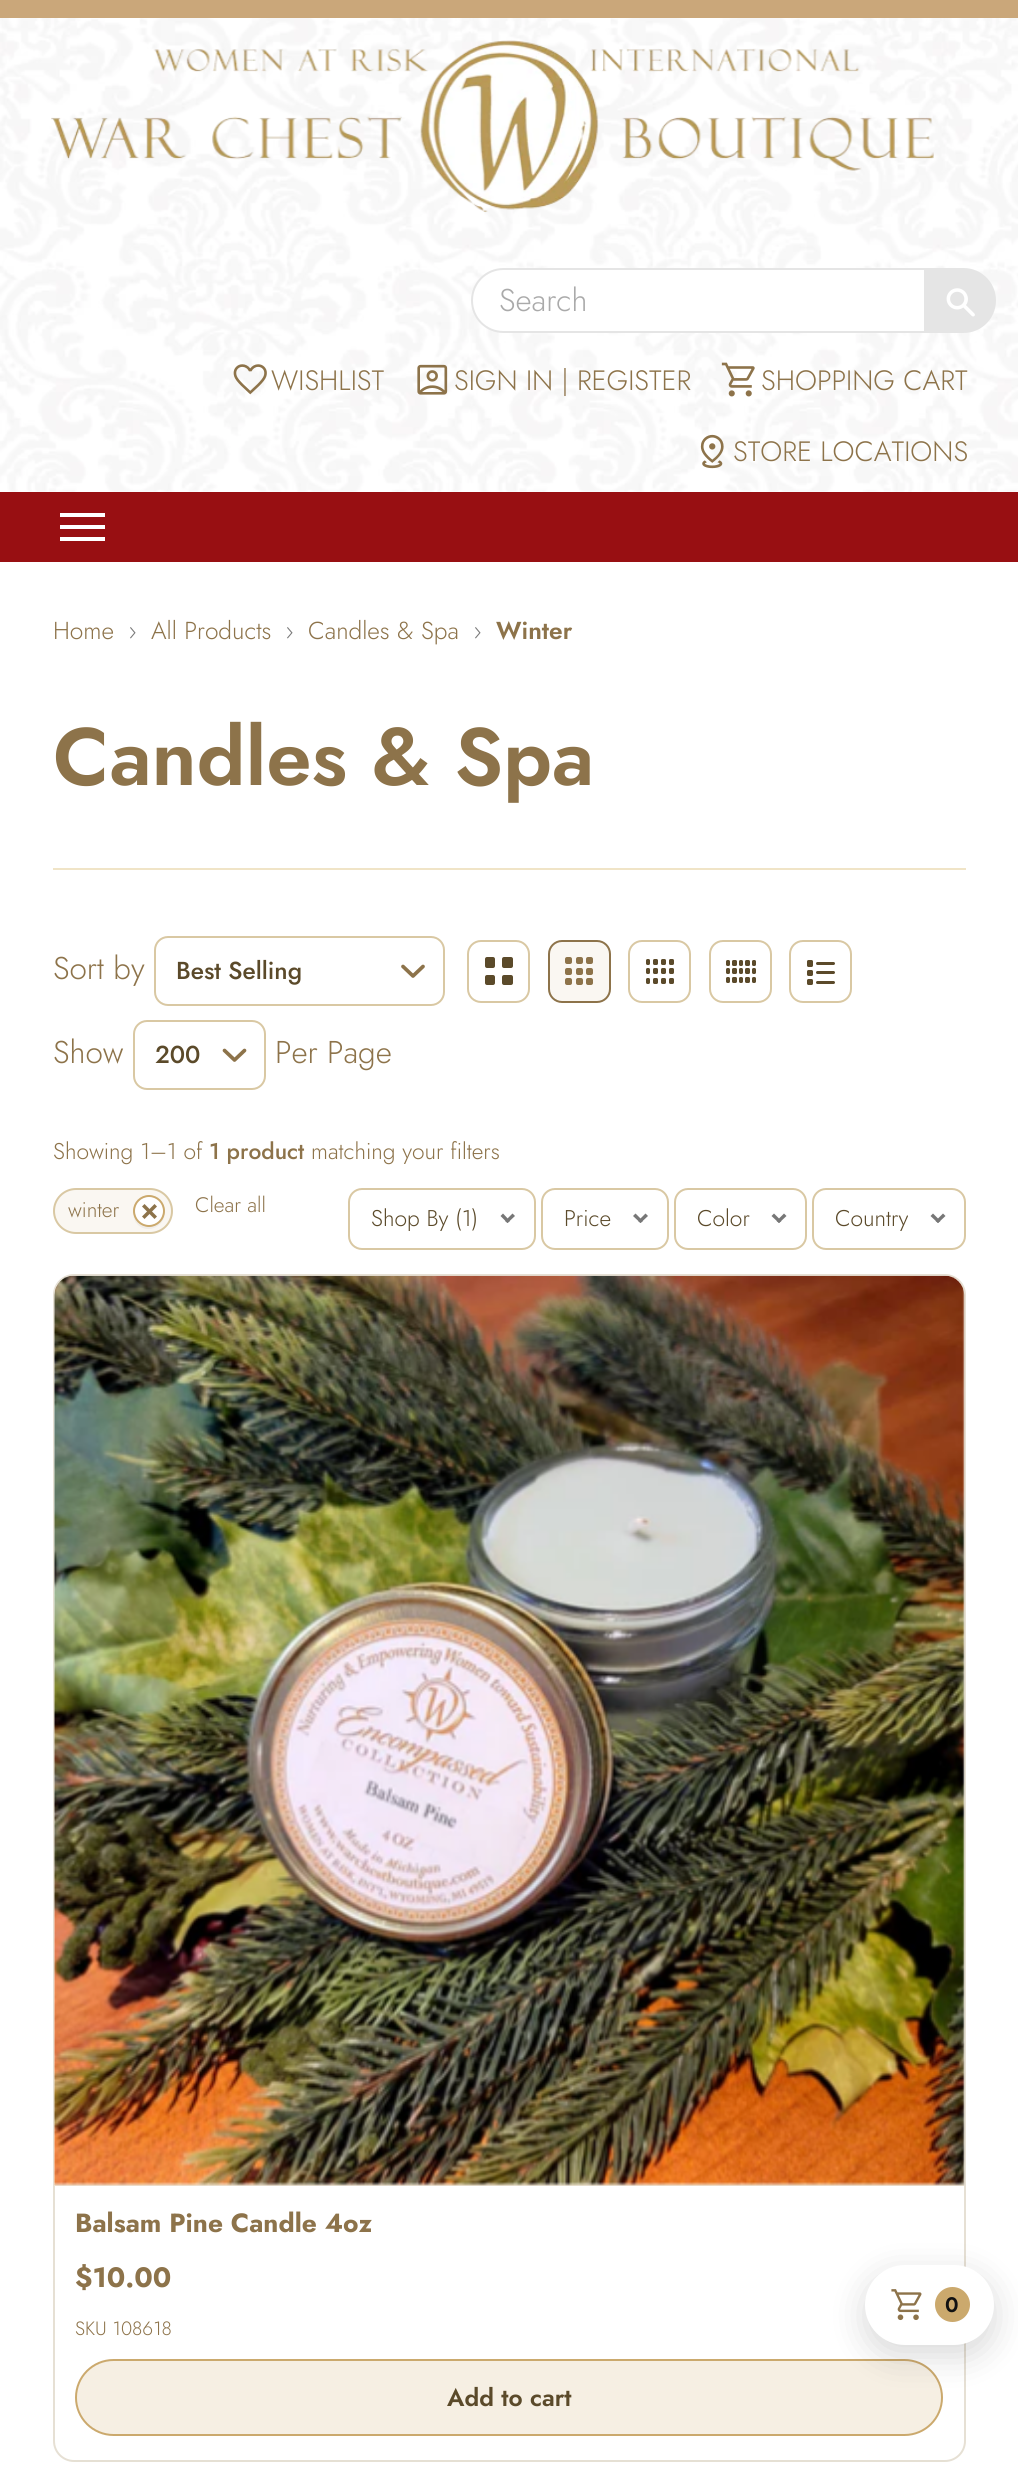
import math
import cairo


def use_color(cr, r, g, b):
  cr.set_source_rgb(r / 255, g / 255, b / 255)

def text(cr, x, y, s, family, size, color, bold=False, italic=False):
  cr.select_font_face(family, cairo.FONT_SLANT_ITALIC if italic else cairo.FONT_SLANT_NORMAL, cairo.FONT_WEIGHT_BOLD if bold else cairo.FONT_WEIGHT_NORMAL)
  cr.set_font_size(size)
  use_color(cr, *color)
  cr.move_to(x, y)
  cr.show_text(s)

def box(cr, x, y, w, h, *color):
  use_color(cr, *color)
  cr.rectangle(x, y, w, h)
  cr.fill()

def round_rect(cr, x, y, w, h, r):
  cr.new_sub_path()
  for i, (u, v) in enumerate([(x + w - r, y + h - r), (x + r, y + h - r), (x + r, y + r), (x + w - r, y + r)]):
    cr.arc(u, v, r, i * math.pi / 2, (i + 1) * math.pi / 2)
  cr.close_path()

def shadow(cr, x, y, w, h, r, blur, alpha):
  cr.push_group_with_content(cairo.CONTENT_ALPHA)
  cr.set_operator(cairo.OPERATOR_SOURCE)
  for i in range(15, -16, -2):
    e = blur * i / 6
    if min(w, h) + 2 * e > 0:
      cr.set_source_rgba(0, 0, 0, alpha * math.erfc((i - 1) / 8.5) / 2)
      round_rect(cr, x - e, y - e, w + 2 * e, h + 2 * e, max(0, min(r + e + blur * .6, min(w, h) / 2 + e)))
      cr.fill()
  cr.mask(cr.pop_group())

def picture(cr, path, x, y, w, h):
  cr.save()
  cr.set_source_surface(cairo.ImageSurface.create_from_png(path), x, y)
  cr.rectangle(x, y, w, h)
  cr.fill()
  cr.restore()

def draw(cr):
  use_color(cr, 255, 255, 255)
  cr.paint()
  picture(cr, "img_01.png", 0, 18, 1018, 474)
  box(cr, 0, 0, 1018, 18, 202, 167, 122)
  picture(cr, "img_02.png", 51, 40, 883, 172)
  use_color(cr, 255, 255, 255)
  cr.new_path()
  cr.move_to(503.5, 269)
  cr.line_to(925, 269)
  cr.line_to(925, 332)
  cr.line_to(503.5, 332)
  cr.curve_to(486, 332, 472, 318, 472, 300.5)
  cr.curve_to(472, 283, 486, 269, 503.5, 269)
  cr.close_path()
  cr.fill_preserve()
  use_color(cr, 229, 229, 229)
  cr.stroke()
  cr.new_path()
  cr.move_to(926, 268)
  cr.line_to(963.5, 268)
  cr.curve_to(981.5, 268, 996, 282.5, 996, 300.5)
  cr.curve_to(996, 318.5, 981.5, 333, 963.5, 333)
  cr.line_to(926, 333)
  cr.close_path()
  cr.fill()
  picture(cr, "img_03.png", 946, 288, 29, 29)
  picture(cr, "img_04.png", 233, 364, 34, 31)
  picture(cr, "img_05.png", 417, 364, 31, 31)
  picture(cr, "img_06.png", 721, 362, 34, 35)
  picture(cr, "img_07.png", 700, 434, 24, 35)
  box(cr, 0, 492, 1018, 70, 152, 15, 18)
  box(cr, 60, 525, 45, 4, 255, 255, 255)
  box(cr, 60, 513, 45, 4, 255, 255, 255)
  box(cr, 60, 537, 45, 4, 255, 255, 255)
  box(cr, 53, 868, 913, 2, 240, 228, 199)
  cr.new_path()
  cr.move_to(403, 966.5)
  cr.line_to(413, 976)
  cr.line_to(423, 966.5)
  use_color(cr, 141, 115, 74)
  cr.set_line_width(3.7)
  cr.set_line_cap(cairo.LINE_CAP_ROUND)
  cr.set_line_join(cairo.LINE_JOIN_ROUND)
  cr.stroke()
  round_rect(cr, 155, 937, 289, 68, 13)
  use_color(cr, 217, 200, 163)
  cr.set_line_width(2)
  cr.set_line_cap(cairo.LINE_CAP_BUTT)
  cr.set_line_join(cairo.LINE_JOIN_MITER)
  cr.stroke()
  round_rect(cr, 468, 941, 61, 61, 13)
  cr.stroke()
  use_color(cr, 91, 74, 42)
  round_rect(cr, 485, 957, 10, 11, 2)
  cr.fill()
  round_rect(cr, 502, 957, 11, 11, 2)
  cr.fill()
  round_rect(cr, 485, 975, 10, 10, 2)
  cr.fill()
  round_rect(cr, 502, 975, 11, 10, 2)
  cr.fill()
  use_color(cr, 250, 247, 242)
  round_rect(cr, 549, 941, 61, 61, 13)
  cr.fill_preserve()
  use_color(cr, 141, 115, 74)
  cr.stroke()
  picture(cr, "img_08.png", 565, 957, 28, 28)
  round_rect(cr, 629, 941, 61, 61, 13)
  use_color(cr, 217, 200, 163)
  cr.stroke()
  picture(cr, "img_09.png", 646, 959, 28, 25)
  round_rect(cr, 710, 941, 61, 61, 13)
  cr.stroke()
  picture(cr, "img_10.png", 726, 960, 30, 23)
  round_rect(cr, 790, 941, 61, 61, 13)
  cr.stroke()
  use_color(cr, 91, 74, 42)
  round_rect(cr, 807, 960, 6, 7, 1.5)
  cr.fill()
  round_rect(cr, 816, 962, 19, 3, 1.5)
  cr.fill()
  round_rect(cr, 807, 970, 6, 6, 1.5)
  cr.fill()
  round_rect(cr, 816, 971, 19, 3, 1.5)
  cr.fill()
  round_rect(cr, 807, 979, 6, 6, 1.5)
  cr.fill()
  round_rect(cr, 816, 981, 19, 3, 1.5)
  cr.fill()
  cr.new_path()
  cr.move_to(224.5, 1050.5)
  cr.line_to(234.5, 1060)
  cr.line_to(244.5, 1050.5)
  use_color(cr, 141, 115, 74)
  cr.set_line_width(3.7)
  cr.set_line_cap(cairo.LINE_CAP_ROUND)
  cr.set_line_join(cairo.LINE_JOIN_ROUND)
  cr.stroke()
  round_rect(cr, 134, 1021, 131, 68, 13)
  use_color(cr, 217, 200, 163)
  cr.set_line_width(2)
  cr.set_line_cap(cairo.LINE_CAP_BUTT)
  cr.set_line_join(cairo.LINE_JOIN_MITER)
  cr.stroke()
  use_color(cr, 250, 247, 242)
  round_rect(cr, 54, 1189, 118, 44, 22)
  cr.fill_preserve()
  use_color(cr, 217, 200, 163)
  cr.stroke()
  use_color(cr, 240, 237, 232)
  cr.new_path()
  cr.move_to(133, 1212)
  cr.curve_to(133, 1215.5, 134, 1219, 135.5, 1222)
  cr.curve_to(146, 1237.5, 169.5, 1225, 164, 1208)
  cr.curve_to(167.5, 1224.5, 146, 1234, 136, 1220.5)
  cr.curve_to(134.5, 1218, 133, 1215, 133, 1212)
  cr.close_path()
  cr.fill()
  use_color(cr, 255, 255, 255)
  cr.arc(149, 1211, 15, 0, 2 * math.pi)
  cr.fill_preserve()
  use_color(cr, 203, 169, 109)
  cr.stroke()
  use_color(cr, 141, 115, 74)
  cr.new_path()
  cr.move_to(144.5, 1204)
  cr.line_to(157, 1216.5)
  cr.line_to(154.5, 1219)
  cr.line_to(142, 1206.5)
  cr.close_path()
  cr.fill()
  cr.new_path()
  cr.move_to(142, 1216.5)
  cr.line_to(154.5, 1204)
  cr.line_to(157, 1206.5)
  cr.line_to(144.5, 1219)
  cr.close_path()
  cr.fill()
  round_rect(cr, 349, 1189, 186, 60, 13)
  use_color(cr, 217, 200, 163)
  cr.stroke()
  use_color(cr, 119, 119, 119)
  cr.new_path()
  cr.move_to(512.5, 1213.5)
  cr.line_to(515, 1216)
  cr.line_to(507.5, 1223)
  cr.line_to(505, 1221)
  cr.close_path()
  cr.fill()
  cr.new_path()
  cr.move_to(503, 1213.5)
  cr.line_to(510, 1221)
  cr.line_to(507.5, 1223)
  cr.line_to(500.5, 1216)
  cr.close_path()
  cr.fill()
  round_rect(cr, 542, 1189, 126, 60, 13)
  use_color(cr, 217, 200, 163)
  cr.stroke()
  use_color(cr, 119, 119, 119)
  cr.new_path()
  cr.move_to(645.5, 1213.5)
  cr.line_to(648, 1216)
  cr.line_to(640.5, 1223)
  cr.line_to(638, 1221)
  cr.close_path()
  cr.fill()
  cr.new_path()
  cr.move_to(635.5, 1213.5)
  cr.line_to(643, 1221)
  cr.line_to(640.5, 1223)
  cr.line_to(633, 1216)
  cr.close_path()
  cr.fill()
  round_rect(cr, 675, 1189, 131, 60, 13)
  use_color(cr, 217, 200, 163)
  cr.stroke()
  use_color(cr, 119, 119, 119)
  cr.new_path()
  cr.move_to(784, 1213.5)
  cr.line_to(786.5, 1216)
  cr.line_to(779, 1223)
  cr.line_to(776.5, 1221)
  cr.close_path()
  cr.fill()
  cr.new_path()
  cr.move_to(774, 1213.5)
  cr.line_to(781.5, 1221)
  cr.line_to(779, 1223)
  cr.line_to(771.5, 1216)
  cr.close_path()
  cr.fill()
  round_rect(cr, 813, 1189, 152, 60, 13)
  use_color(cr, 217, 200, 163)
  cr.stroke()
  use_color(cr, 119, 119, 119)
  cr.new_path()
  cr.move_to(943, 1213.5)
  cr.line_to(945.5, 1216)
  cr.line_to(938, 1223)
  cr.line_to(935.5, 1221)
  cr.close_path()
  cr.fill()
  cr.new_path()
  cr.move_to(933, 1213.5)
  cr.line_to(940.5, 1221)
  cr.line_to(938, 1223)
  cr.line_to(930.5, 1216)
  cr.close_path()
  cr.fill()
  round_rect(cr, 54, 1275, 911, 1186, 20)
  use_color(cr, 230, 224, 212)
  cr.stroke()
  use_color(cr, 250, 248, 244)
  cr.new_path()
  cr.move_to(73, 1276)
  cr.line_to(945, 1276)
  cr.curve_to(955.5, 1276, 964, 1284.5, 964, 1295)
  cr.line_to(964, 2186)
  cr.line_to(54, 2186)
  cr.line_to(54, 1295)
  cr.curve_to(54, 1284.5, 62.5, 1276, 73, 1276)
  cr.close_path()
  cr.fill()
  box(cr, 54, 2184, 910, 2, 238, 229, 214)
  picture(cr, "img_11.png", 54, 1275, 911, 911)
  use_color(cr, 246, 239, 227)
  round_rect(cr, 76, 2360, 866, 75, 37.5)
  cr.fill_preserve()
  use_color(cr, 203, 169, 109)
  cr.stroke()
  use_color(cr, 0, 0, 0)
  shadow(cr, 865, 2275, 129, 81, 40.5, 17.5, 0.15)
  use_color(cr, 255, 255, 255)
  round_rect(cr, 865, 2265, 129, 80, 40)
  cr.fill()
  picture(cr, "img_12.png", 891, 2289, 31, 32)
  use_color(cr, 203, 169, 109)
  cr.arc(952.5, 2304.5, 17.5, 0, 2 * math.pi)
  cr.fill()
  text(cr, 499, 311, "Search", "Jost Light", 31.5, (170, 170, 170))
  text(cr, 271, 390, "WISHLIST", "Jost Light", 28, (141, 115, 74))
  text(cr, 454, 390, "SIGN IN | REGISTER", "Jost Light", 28, (141, 115, 74))
  text(cr, 761, 390, "SHOPPING CART", "Jost Light", 28, (141, 115, 74))
  text(cr, 733, 461, "STORE LOCATIONS", "Jost Light", 28, (141, 115, 74))
  text(cr, 53, 639, "Home", "Jost Light", 24.5, (141, 115, 74))
  text(cr, 128, 639, "›", "Jost Light", 24.5, (122, 122, 122))
  text(cr, 151, 639, "All Products", "Jost Light", 24.5, (141, 115, 74))
  text(cr, 285, 639, "›", "Jost Light", 24.5, (122, 122, 122))
  text(cr, 308, 639, "Candles & Spa", "Jost Light", 24.5, (141, 115, 74))
  text(cr, 473, 639, "›", "Jost Light", 24.5, (122, 122, 122))
  text(cr, 496, 639, "Winter", "Jost SemiBold", 24.5, (141, 115, 74))
  text(cr, 53, 785, "Candles & Spa", "Jost SemiBold", 81, (141, 115, 74))
  text(cr, 53, 979, "Sort by", "Jost Light", 31.5, (141, 115, 74))
  text(cr, 176, 979, "Best Selling", "Jost Medium", 24.5, (91, 74, 42))
  text(cr, 53, 1063, "Show", "Jost Light", 31.5, (141, 115, 74))
  text(cr, 155, 1063, "200", "Jost Medium", 24.5, (91, 74, 42))
  text(cr, 275, 1063, "Per Page", "Jost Light", 31.5, (141, 115, 74))
  text(cr, 53, 1159, "Showing 1–1 of", "Jost Light", 22.75, (141, 115, 74))
  text(cr, 209, 1159, "1 product", "Jost Medium", 22.75, (141, 115, 74))
  text(cr, 311, 1159, "matching your filters", "Jost Light", 22.75, (141, 115, 74))
  text(cr, 68, 1217, "winter", "Jost Light", 21, (141, 115, 74))
  text(cr, 195, 1212, "Clear all", "Jost Light", 21, (141, 115, 74))
  text(cr, 371, 1226, "Shop By (1)", "Jost Light", 22.75, (91, 74, 42))
  text(cr, 564, 1226, "Price", "Jost Light", 22.75, (91, 74, 42))
  text(cr, 697, 1226, "Color", "Jost Light", 22.75, (91, 74, 42))
  text(cr, 835, 1226, "Country", "Jost Light", 22.75, (91, 74, 42))
  text(cr, 75, 2232, "Balsam Pine Candle 4oz", "Jost", 26.25, (141, 115, 74), bold=True)
  text(cr, 75, 2287, "$10.00", "Jost", 28, (141, 115, 74), bold=True)
  text(cr, 75, 2335, "SKU 108618", "Jost Light", 19.25, (141, 115, 74))
  text(cr, 447, 2406, "Add to cart", "Jost SemiBold", 24.5, (91, 74, 42))
  text(cr, 945, 2312, "0", "Jost SemiBold", 21, (17, 17, 17))


surface = cairo.ImageSurface(cairo.FORMAT_RGB24, 1018, 2467)
cr = cairo.Context(surface)
options = cairo.FontOptions()
options.set_hint_metrics(cairo.HINT_METRICS_OFF)
options.set_hint_style(cairo.HINT_STYLE_NONE)
cr.set_font_options(options)
cr.set_miter_limit(4)
draw(cr)
surface.write_to_png("out.png")
